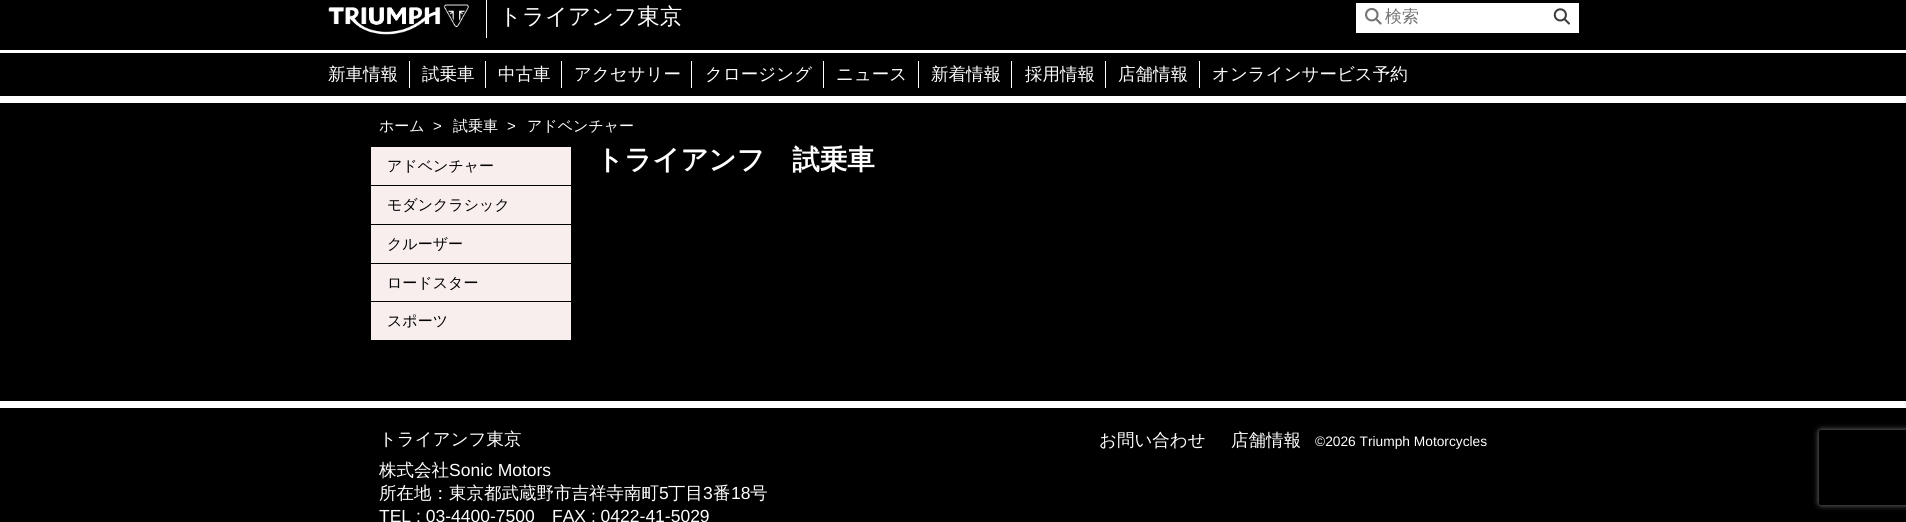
import math
import cairo


def use_color(cr, r, g, b):
  cr.set_source_rgb(r / 255, g / 255, b / 255)

def text(cr, x, y, s, family, size, color, bold=False, italic=False):
  cr.select_font_face(family, cairo.FONT_SLANT_ITALIC if italic else cairo.FONT_SLANT_NORMAL, cairo.FONT_WEIGHT_BOLD if bold else cairo.FONT_WEIGHT_NORMAL)
  cr.set_font_size(size)
  use_color(cr, *color)
  cr.move_to(x, y)
  cr.show_text(s)

def box(cr, x, y, w, h, *color):
  use_color(cr, *color)
  cr.rectangle(x, y, w, h)
  cr.fill()

def round_rect(cr, x, y, w, h, r):
  cr.new_sub_path()
  for i, (u, v) in enumerate([(x + w - r, y + h - r), (x + r, y + h - r), (x + r, y + r), (x + w - r, y + r)]):
    cr.arc(u, v, r, i * math.pi / 2, (i + 1) * math.pi / 2)
  cr.close_path()

def shadow(cr, x, y, w, h, r, blur, alpha):
  cr.push_group_with_content(cairo.CONTENT_ALPHA)
  cr.set_operator(cairo.OPERATOR_SOURCE)
  for i in range(15, -16, -2):
    e = blur * i / 6
    if min(w, h) + 2 * e > 0:
      cr.set_source_rgba(0, 0, 0, alpha * math.erfc((i - 1) / 8.5) / 2)
      round_rect(cr, x - e, y - e, w + 2 * e, h + 2 * e, max(0, min(r + e + blur * .6, min(w, h) / 2 + e)))
      cr.fill()
  cr.mask(cr.pop_group())

def picture(cr, path, x, y, w, h):
  cr.save()
  cr.set_source_surface(cairo.ImageSurface.create_from_png(path), x, y)
  cr.rectangle(x, y, w, h)
  cr.fill()
  cr.restore()

def draw(cr):
  use_color(cr, 0, 0, 0)
  cr.paint()
  box(cr, 0, 50, 1906, 3, 255, 255, 255)
  picture(cr, "img_01.png", 328, 4, 141, 31)
  box(cr, 486, 0, 1, 38, 255, 255, 255)
  box(cr, 1356, 3, 223, 30, 255, 255, 255)
  picture(cr, "img_02.png", 1365, 7, 17, 18)
  picture(cr, "img_03.png", 1553, 8, 17, 17)
  box(cr, 0, 96, 1906, 7, 255, 255, 255)
  box(cr, 409, 61, 1, 27, 255, 255, 255)
  box(cr, 485, 61, 1, 27, 255, 255, 255)
  box(cr, 561, 61, 1, 27, 255, 255, 255)
  box(cr, 691, 61, 1, 27, 255, 255, 255)
  box(cr, 823, 61, 1, 27, 255, 255, 255)
  box(cr, 918, 61, 1, 27, 255, 255, 255)
  box(cr, 1011, 61, 1, 27, 255, 255, 255)
  box(cr, 1105, 61, 1, 27, 255, 255, 255)
  box(cr, 1199, 61, 1, 27, 255, 255, 255)
  box(cr, 371, 147, 200, 38, 248, 238, 238)
  box(cr, 371, 186, 200, 38, 248, 238, 238)
  box(cr, 371, 225, 200, 38, 248, 238, 238)
  box(cr, 371, 264, 200, 37, 248, 238, 238)
  box(cr, 371, 302, 200, 38, 248, 238, 238)
  box(cr, 0, 401, 1906, 7, 255, 255, 255)
  cr.save()
  cr.set_fill_rule(cairo.FILL_RULE_EVEN_ODD)
  cr.new_path()
  cr.move_to(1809, 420)
  cr.line_to(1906, 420)
  cr.line_to(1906, 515)
  cr.line_to(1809, 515)
  cr.close_path()
  cr.move_to(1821.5, 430)
  cr.line_to(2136.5, 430)
  cr.curve_to(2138, 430, 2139, 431, 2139, 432.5)
  cr.line_to(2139, 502.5)
  cr.curve_to(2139, 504, 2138, 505, 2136.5, 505)
  cr.line_to(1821.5, 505)
  cr.curve_to(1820, 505, 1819, 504, 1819, 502.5)
  cr.line_to(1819, 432.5)
  cr.curve_to(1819, 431, 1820, 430, 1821.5, 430)
  cr.close_path()
  cr.clip()
  use_color(cr, 128, 128, 128)
  shadow(cr, 1819, 430, 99, 75, 2.5, 3, 1)
  cr.restore()
  text(cr, 499, 24, "トライアンフ東京", "WenQuanYi Zen Hei Medium", 22.5, (255, 255, 255))
  text(cr, 1385, 22, "検索", "WenQuanYi Zen Hei Medium", 17, (117, 117, 117))
  text(cr, 328, 80, "新車情報", "WenQuanYi Zen Hei Medium", 17.5, (255, 255, 255))
  text(cr, 422, 80, "試乗車", "WenQuanYi Zen Hei Medium", 17.5, (255, 255, 255))
  text(cr, 498, 80, "中古車", "WenQuanYi Zen Hei Medium", 17.5, (255, 255, 255))
  text(cr, 574, 80, "アクセサリー", "WenQuanYi Zen Hei Medium", 17.5, (255, 255, 255))
  text(cr, 705, 80, "クロージング", "WenQuanYi Zen Hei Medium", 17.5, (255, 255, 255))
  text(cr, 836, 80, "ニュース", "WenQuanYi Zen Hei Medium", 17.5, (255, 255, 255))
  text(cr, 931, 80, "新着情報", "WenQuanYi Zen Hei Medium", 17.5, (255, 255, 255))
  text(cr, 1025, 80, "採用情報", "WenQuanYi Zen Hei Medium", 17.5, (255, 255, 255))
  text(cr, 1118, 80, "店舗情報", "WenQuanYi Zen Hei Medium", 17.5, (255, 255, 255))
  text(cr, 1212, 80, "オンラインサービス予約", "WenQuanYi Zen Hei Medium", 17.5, (255, 255, 255))
  text(cr, 379, 131, "ホーム", "WenQuanYi Zen Hei Medium", 15, (255, 255, 255))
  text(cr, 433, 131, ">", "Liberation Sans", 15, (255, 255, 255))
  text(cr, 453, 131, "試乗車", "WenQuanYi Zen Hei Medium", 15, (255, 255, 255))
  text(cr, 507, 131, ">", "Liberation Sans", 15, (255, 255, 255))
  text(cr, 527, 131, "アドベンチャー", "WenQuanYi Zen Hei Medium", 15, (255, 255, 255))
  text(cr, 387, 171, "アドベンチャー", "WenQuanYi Zen Hei Medium", 15, (0, 0, 0))
  text(cr, 387, 210, "モダンクラシック", "WenQuanYi Zen Hei Medium", 15, (0, 0, 0))
  text(cr, 387, 249, "クルーザー", "WenQuanYi Zen Hei Medium", 15, (0, 0, 0))
  text(cr, 387, 288, "ロードスター", "WenQuanYi Zen Hei Medium", 15, (0, 0, 0))
  text(cr, 387, 326, "スポーツ", "WenQuanYi Zen Hei Medium", 15, (0, 0, 0))
  text(cr, 596, 169, "トライアンフ　試乗車", "WenQuanYi Zen Hei", 27.5, (255, 255, 255), bold=True)
  text(cr, 379, 445, "トライアンフ東京", "WenQuanYi Zen Hei Medium", 17.5, (255, 255, 255))
  text(cr, 379, 476, "株式会社", "WenQuanYi Zen Hei Medium", 17.5, (255, 255, 255))
  text(cr, 449, 476, "Sonic Motors", "Liberation Sans", 17.5, (255, 255, 255))
  text(cr, 379, 499, "所在地：東京都武蔵野市吉祥寺南町", "WenQuanYi Zen Hei Medium", 17.5, (255, 255, 255))
  text(cr, 659, 499, "5", "Liberation Sans", 17.5, (255, 255, 255))
  text(cr, 668, 499, "丁目", "WenQuanYi Zen Hei Medium", 17.5, (255, 255, 255))
  text(cr, 703, 499, "3", "Liberation Sans", 17.5, (255, 255, 255))
  text(cr, 713, 499, "番", "WenQuanYi Zen Hei Medium", 17.5, (255, 255, 255))
  text(cr, 731, 499, "18", "Liberation Sans", 17.5, (255, 255, 255))
  text(cr, 750, 499, "号", "WenQuanYi Zen Hei Medium", 17.5, (255, 255, 255))
  text(cr, 379, 522, "TEL : 03-4400-7500", "Liberation Sans", 17.5, (255, 255, 255))
  text(cr, 552, 522, "FAX : 0422-41-5029", "Liberation Sans", 17.5, (255, 255, 255))
  text(cr, 1099, 446, "お問い合わせ", "WenQuanYi Zen Hei Medium", 17.5, (255, 255, 255))
  text(cr, 1231, 446, "店舗情報", "WenQuanYi Zen Hei Medium", 17.5, (255, 255, 255))
  text(cr, 1315, 446, "©2026 Triumph Motorcycles", "Liberation Sans", 13.75, (255, 255, 255))


surface = cairo.ImageSurface(cairo.FORMAT_RGB24, 1906, 522)
cr = cairo.Context(surface)
options = cairo.FontOptions()
options.set_hint_metrics(cairo.HINT_METRICS_OFF)
options.set_hint_style(cairo.HINT_STYLE_NONE)
cr.set_font_options(options)
cr.set_miter_limit(4)
draw(cr)
surface.write_to_png("out.png")
